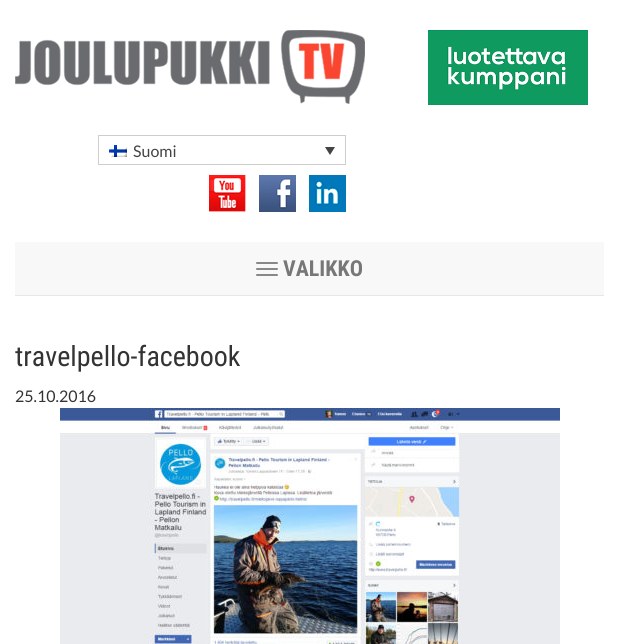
import math
import cairo


def use_color(cr, r, g, b):
  cr.set_source_rgb(r / 255, g / 255, b / 255)

def text(cr, x, y, s, family, size, color, bold=False, italic=False):
  cr.select_font_face(family, cairo.FONT_SLANT_ITALIC if italic else cairo.FONT_SLANT_NORMAL, cairo.FONT_WEIGHT_BOLD if bold else cairo.FONT_WEIGHT_NORMAL)
  cr.set_font_size(size)
  use_color(cr, *color)
  cr.move_to(x, y)
  cr.show_text(s)

def box(cr, x, y, w, h, *color):
  use_color(cr, *color)
  cr.rectangle(x, y, w, h)
  cr.fill()

def round_rect(cr, x, y, w, h, r):
  cr.new_sub_path()
  for i, (u, v) in enumerate([(x + w - r, y + h - r), (x + r, y + h - r), (x + r, y + r), (x + w - r, y + r)]):
    cr.arc(u, v, r, i * math.pi / 2, (i + 1) * math.pi / 2)
  cr.close_path()

def picture(cr, path, x, y, w, h):
  cr.save()
  cr.set_source_surface(cairo.ImageSurface.create_from_png(path), x, y)
  cr.rectangle(x, y, w, h)
  cr.fill()
  cr.restore()

def draw(cr):
  use_color(cr, 255, 255, 255)
  cr.paint()
  picture(cr, "img_01.png", 15, 30, 350, 74)
  picture(cr, "img_02.png", 428, 30, 160, 75)
  cr.rectangle(98.5, 135.5, 247, 29)
  use_color(cr, 205, 205, 205)
  cr.set_line_width(1)
  cr.stroke()
  picture(cr, "img_03.png", 109, 145, 18, 12)
  use_color(cr, 68, 68, 68)
  cr.new_path()
  cr.move_to(325, 147)
  cr.line_to(335, 147)
  cr.line_to(330, 155)
  cr.close_path()
  cr.fill()
  picture(cr, "img_04.png", 209, 175, 37, 37)
  picture(cr, "img_05.png", 259, 175, 37, 37)
  picture(cr, "img_06.png", 309, 175, 37, 37)
  box(cr, 15, 242, 589, 53, 248, 248, 248)
  box(cr, 15, 295, 589, 1, 231, 231, 231)
  use_color(cr, 136, 136, 136)
  round_rect(cr, 256, 262, 22, 2, 1)
  cr.fill()
  round_rect(cr, 256, 268, 22, 2, 1)
  cr.fill()
  round_rect(cr, 256, 274, 22, 2, 1)
  cr.fill()
  picture(cr, "img_07.png", 60, 408, 500, 236)
  text(cr, 133, 157, "Suomi", "Lato", 16, (68, 68, 68))
  text(cr, 283, 276, "VALIKKO", "Roboto Condensed", 22, (119, 119, 119), bold=True)
  text(cr, 15, 366, "travelpello-facebook", "Roboto Condensed", 28, (51, 51, 51))
  text(cr, 15, 402, "25.10.2016", "Lato", 16, (51, 51, 51))


surface = cairo.ImageSurface(cairo.FORMAT_RGB24, 619, 644)
cr = cairo.Context(surface)
options = cairo.FontOptions()
options.set_hint_metrics(cairo.HINT_METRICS_OFF)
options.set_hint_style(cairo.HINT_STYLE_NONE)
cr.set_font_options(options)
cr.set_miter_limit(4)
draw(cr)
surface.write_to_png("out.png")
